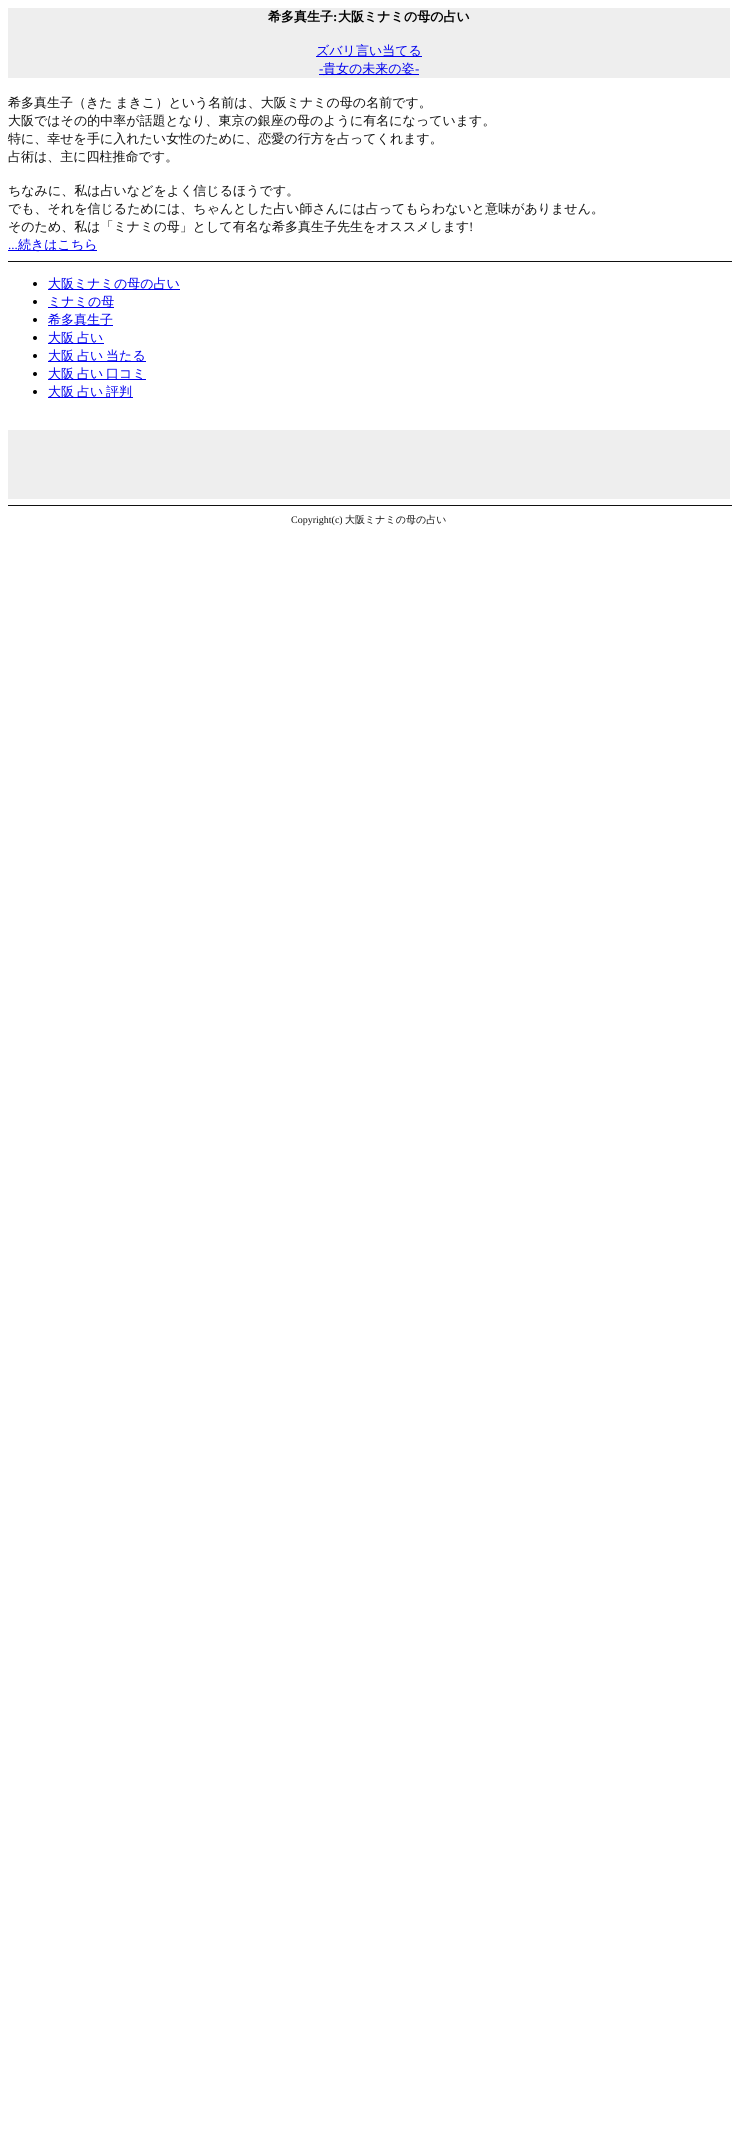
import math
import cairo


def use_color(cr, r, g, b):
  cr.set_source_rgb(r / 255, g / 255, b / 255)

def text(cr, x, y, s, family, size, color, bold=False, italic=False):
  cr.select_font_face(family, cairo.FONT_SLANT_ITALIC if italic else cairo.FONT_SLANT_NORMAL, cairo.FONT_WEIGHT_BOLD if bold else cairo.FONT_WEIGHT_NORMAL)
  cr.set_font_size(size)
  use_color(cr, *color)
  cr.move_to(x, y)
  cr.show_text(s)

def spaced_text(cr, x, y, s, letter, word):
  cr.move_to(x, y)
  for ch in s:
    cr.show_text(ch)
    cr.rel_move_to(letter + word * (ch == ' '), 0)

def box(cr, x, y, w, h, *color):
  use_color(cr, *color)
  cr.rectangle(x, y, w, h)
  cr.fill()

def draw(cr):
  use_color(cr, 255, 255, 255)
  cr.paint()
  box(cr, 8, 8, 722, 70, 238, 238, 238)
  box(cr, 316, 56, 106, 1, 0, 0, 238)
  box(cr, 319, 74, 100, 1, 0, 0, 238)
  box(cr, 8, 250, 89, 1, 0, 0, 238)
  box(cr, 8, 261, 724, 1, 17, 17, 17)
  use_color(cr, 0, 0, 0)
  cr.arc(35, 284, 2, 0, 2 * math.pi)
  cr.fill()
  box(cr, 48, 289, 132, 1, 0, 0, 238)
  use_color(cr, 0, 0, 0)
  cr.arc(35, 302, 2, 0, 2 * math.pi)
  cr.fill()
  box(cr, 48, 307, 66, 1, 0, 0, 238)
  use_color(cr, 0, 0, 0)
  cr.arc(35, 320, 2, 0, 2 * math.pi)
  cr.fill()
  box(cr, 48, 325, 65, 1, 0, 0, 238)
  use_color(cr, 0, 0, 0)
  cr.arc(35, 338, 2, 0, 2 * math.pi)
  cr.fill()
  box(cr, 48, 343, 56, 1, 0, 0, 238)
  use_color(cr, 0, 0, 0)
  cr.arc(35, 356, 2, 0, 2 * math.pi)
  cr.fill()
  box(cr, 48, 361, 98, 1, 0, 0, 238)
  use_color(cr, 0, 0, 0)
  cr.arc(35, 374, 2, 0, 2 * math.pi)
  cr.fill()
  box(cr, 48, 379, 98, 1, 0, 0, 238)
  use_color(cr, 0, 0, 0)
  cr.arc(35, 392, 2, 0, 2 * math.pi)
  cr.fill()
  box(cr, 48, 397, 85, 1, 0, 0, 238)
  box(cr, 8, 430, 722, 69, 238, 238, 238)
  box(cr, 8, 505, 724, 1, 17, 17, 17)
  text(cr, 268, 21, "希多真生子", "WenQuanYi Zen Hei", 13, (0, 0, 0), bold=True)
  text(cr, 333, 21, ":", "Liberation Serif", 13, (0, 0, 0), bold=True)
  text(cr, 338, 21, "大阪ミナミの母の占い", "WenQuanYi Zen Hei", 13, (0, 0, 0), bold=True)
  text(cr, 316, 55, "ズバリ言い当てる", "WenQuanYi Zen Hei Medium", 13, (0, 0, 238))
  text(cr, 319, 73, "-", "Liberation Serif", 13, (0, 0, 238))
  text(cr, 323, 73, "貴女の未来の姿", "WenQuanYi Zen Hei Medium", 13, (0, 0, 238))
  text(cr, 415, 73, "-", "Liberation Serif", 13, (0, 0, 238))
  cr.select_font_face("WenQuanYi Zen Hei Medium")
  use_color(cr, 17, 17, 17)
  spaced_text(cr, 8, 107, "希多真生子（きた まきこ）という名前は、大阪ミナミの母の名前です。", 0, -1)
  text(cr, 8, 125, "大阪ではその的中率が話題となり、東京の銀座の母のように有名になっています。", "WenQuanYi Zen Hei Medium", 13, (17, 17, 17))
  text(cr, 8, 143, "特に、幸せを手に入れたい女性のために、恋愛の行方を占ってくれます。", "WenQuanYi Zen Hei Medium", 13, (17, 17, 17))
  text(cr, 8, 161, "占術は、主に四柱推命です。", "WenQuanYi Zen Hei Medium", 13, (17, 17, 17))
  text(cr, 8, 195, "ちなみに、私は占いなどをよく信じるほうです。", "WenQuanYi Zen Hei Medium", 13, (17, 17, 17))
  text(cr, 8, 213, "でも、それを信じるためには、ちゃんとした占い師さんには占ってもらわないと意味がありません。", "WenQuanYi Zen Hei Medium", 13, (17, 17, 17))
  text(cr, 8, 231, "そのため、私は「ミナミの母」として有名な希多真生子先生をオススメします", "WenQuanYi Zen Hei Medium", 13, (17, 17, 17))
  text(cr, 469, 231, "!", "Liberation Serif", 13, (17, 17, 17))
  text(cr, 8, 249, "...", "Liberation Serif", 13, (0, 0, 238))
  text(cr, 18, 249, "続きはこちら", "WenQuanYi Zen Hei Medium", 13, (0, 0, 238))
  text(cr, 48, 288, "大阪ミナミの母の占い", "WenQuanYi Zen Hei Medium", 13, (0, 0, 238))
  text(cr, 48, 306, "ミナミの母", "WenQuanYi Zen Hei Medium", 13, (0, 0, 238))
  text(cr, 48, 324, "希多真生子", "WenQuanYi Zen Hei Medium", 13, (0, 0, 238))
  spaced_text(cr, 48, 342, "大阪 占い", 0, -1)
  spaced_text(cr, 48, 360, "大阪 占い 当たる", 0, -1)
  spaced_text(cr, 48, 378, "大阪 占い 口コミ", 0, -1)
  spaced_text(cr, 48, 396, "大阪 占い 評判", 0, -1)
  text(cr, 291, 523, "Copyright(c)", "Liberation Serif", 10, (17, 17, 17))
  text(cr, 345, 523, "大阪ミナミの母の占い", "WenQuanYi Zen Hei Medium", 10, (17, 17, 17))


surface = cairo.ImageSurface(cairo.FORMAT_RGB24, 738, 2146)
cr = cairo.Context(surface)
options = cairo.FontOptions()
options.set_hint_metrics(cairo.HINT_METRICS_OFF)
options.set_hint_style(cairo.HINT_STYLE_NONE)
cr.set_font_options(options)
cr.set_miter_limit(4)
draw(cr)
surface.write_to_png("out.png")
